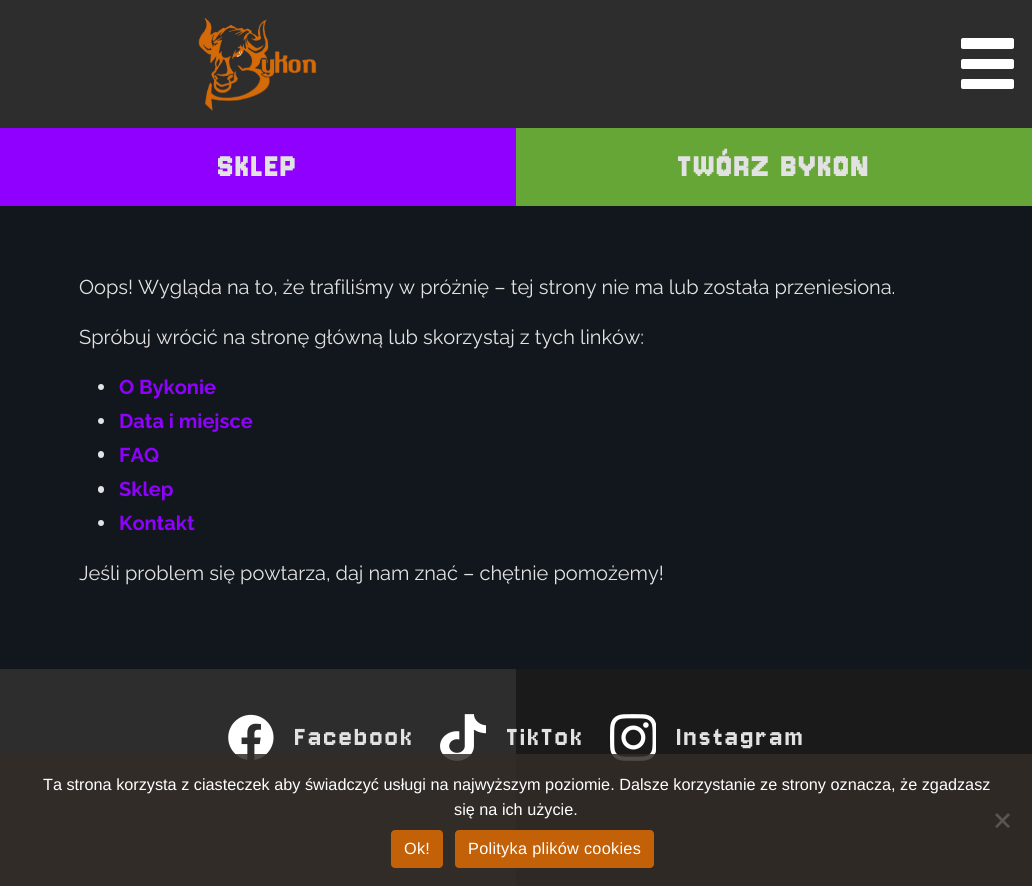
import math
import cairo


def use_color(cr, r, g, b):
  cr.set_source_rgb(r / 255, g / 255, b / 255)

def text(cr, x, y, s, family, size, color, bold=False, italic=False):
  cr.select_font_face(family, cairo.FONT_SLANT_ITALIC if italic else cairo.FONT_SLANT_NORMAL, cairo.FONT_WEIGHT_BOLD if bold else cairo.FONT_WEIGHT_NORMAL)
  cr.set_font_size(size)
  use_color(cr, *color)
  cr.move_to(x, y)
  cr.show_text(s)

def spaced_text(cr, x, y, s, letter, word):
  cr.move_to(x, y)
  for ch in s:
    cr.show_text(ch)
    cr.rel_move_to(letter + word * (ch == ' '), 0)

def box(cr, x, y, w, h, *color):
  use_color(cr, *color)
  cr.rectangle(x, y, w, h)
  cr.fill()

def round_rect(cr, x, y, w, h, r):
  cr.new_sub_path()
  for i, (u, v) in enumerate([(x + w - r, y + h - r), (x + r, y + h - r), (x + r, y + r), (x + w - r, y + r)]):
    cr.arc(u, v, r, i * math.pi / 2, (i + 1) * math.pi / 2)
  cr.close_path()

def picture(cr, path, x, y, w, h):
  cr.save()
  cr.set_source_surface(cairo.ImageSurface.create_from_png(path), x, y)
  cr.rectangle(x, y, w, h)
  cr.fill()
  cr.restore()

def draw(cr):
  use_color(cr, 17, 23, 28)
  cr.paint()
  box(cr, 0, 0, 1032, 128, 45, 45, 45)
  picture(cr, "img_01.png", 198, 17, 119, 94)
  use_color(cr, 255, 255, 255)
  round_rect(cr, 961, 59, 53, 10, 2)
  cr.fill()
  round_rect(cr, 961, 38, 53, 11, 2)
  cr.fill()
  round_rect(cr, 961, 79, 53, 10, 2)
  cr.fill()
  box(cr, 0, 128, 516, 78, 143, 0, 255)
  box(cr, 516, 128, 516, 78, 102, 166, 54)
  use_color(cr, 226, 226, 226)
  cr.arc(101, 387, 3, 0, 2 * math.pi)
  cr.fill()
  cr.arc(101, 421, 3, 0, 2 * math.pi)
  cr.fill()
  round_rect(cr, 98, 451, 6, 7, 3)
  cr.fill()
  round_rect(cr, 98, 486, 6, 7, 3)
  cr.fill()
  cr.arc(101, 523, 3, 0, 2 * math.pi)
  cr.fill()
  picture(cr, "img_02.png", 0, 669, 1032, 217)
  picture(cr, "img_03.png", 228, 714, 46, 46)
  picture(cr, "img_04.png", 440, 714, 46, 47)
  picture(cr, "img_05.png", 610, 714, 46, 47)
  cr.set_source_rgba(0.2, 0.173, 0.157, 0.85)
  cr.rectangle(0, 754, 1032, 132)
  cr.fill()
  use_color(cr, 88, 85, 83)
  cr.new_path()
  cr.move_to(1008, 813)
  cr.line_to(1010, 815)
  cr.line_to(997, 828)
  cr.line_to(995, 826.5)
  cr.close_path()
  cr.fill()
  cr.new_path()
  cr.move_to(995, 815)
  cr.line_to(997, 813)
  cr.line_to(1010, 826.5)
  cr.line_to(1008, 828)
  cr.close_path()
  cr.fill()
  use_color(cr, 195, 97, 9)
  round_rect(cr, 391, 830, 52, 38, 4)
  cr.fill()
  round_rect(cr, 455, 830, 199, 38, 4)
  cr.fill()
  cr.select_font_face("Jersey 10", cairo.FONT_SLANT_NORMAL, cairo.FONT_WEIGHT_BOLD)
  cr.set_font_size(35)
  use_color(cr, 226, 226, 226)
  spaced_text(cr, 218, 176, "SKLEP", 2.5, 0)
  spaced_text(cr, 678, 176, "TWÓRZ BYKON", 2.5, 0)
  text(cr, 79, 294, "Oops! Wygląda na to, że trafiliśmy w próżnię – tej strony nie ma lub została przeniesiona.", "Raleway", 20, (226, 226, 226))
  text(cr, 79, 344, "Spróbuj wrócić na stronę główną lub skorzystaj z tych linków:", "Raleway", 20, (226, 226, 226))
  text(cr, 119, 394, "O Bykonie", "Raleway", 20, (143, 0, 255), bold=True)
  text(cr, 119, 428, "Data i miejsce", "Raleway", 20, (143, 0, 255), bold=True)
  text(cr, 119, 462, "FAQ", "Raleway", 20, (143, 0, 255), bold=True)
  text(cr, 119, 496, "Sklep", "Raleway", 20, (143, 0, 255), bold=True)
  text(cr, 119, 530, "Kontakt", "Raleway", 20, (143, 0, 255), bold=True)
  text(cr, 79, 580, "Jeśli problem się powtarza, daj nam znać – chętnie pomożemy!", "Raleway", 20, (226, 226, 226))
  cr.select_font_face("Jersey 10")
  cr.set_font_size(30)
  spaced_text(cr, 295, 745, "Facebook", 2.5, 0)
  spaced_text(cr, 507, 745, "TikTok", 2.5, 0)
  spaced_text(cr, 677, 745, "Instagram", 2.5, 0)
  text(cr, 43, 790, "Ta strona korzysta z ciasteczek aby świadczyć usługi na najwyższym poziomie. Dalsze korzystanie ze strony oznacza, że zgadzasz", "Liberation Sans", 16.25, (255, 255, 255))
  text(cr, 454, 815, "się na ich użycie.", "Liberation Sans", 16.25, (255, 255, 255))
  spaced_text(cr, 404, 854, "Ok!", 0.3, 0)
  spaced_text(cr, 468, 854, "Polityka plików cookies", 0.3, 0)


surface = cairo.ImageSurface(cairo.FORMAT_RGB24, 1032, 886)
cr = cairo.Context(surface)
options = cairo.FontOptions()
options.set_hint_metrics(cairo.HINT_METRICS_OFF)
options.set_hint_style(cairo.HINT_STYLE_NONE)
cr.set_font_options(options)
cr.set_miter_limit(4)
draw(cr)
surface.write_to_png("out.png")
